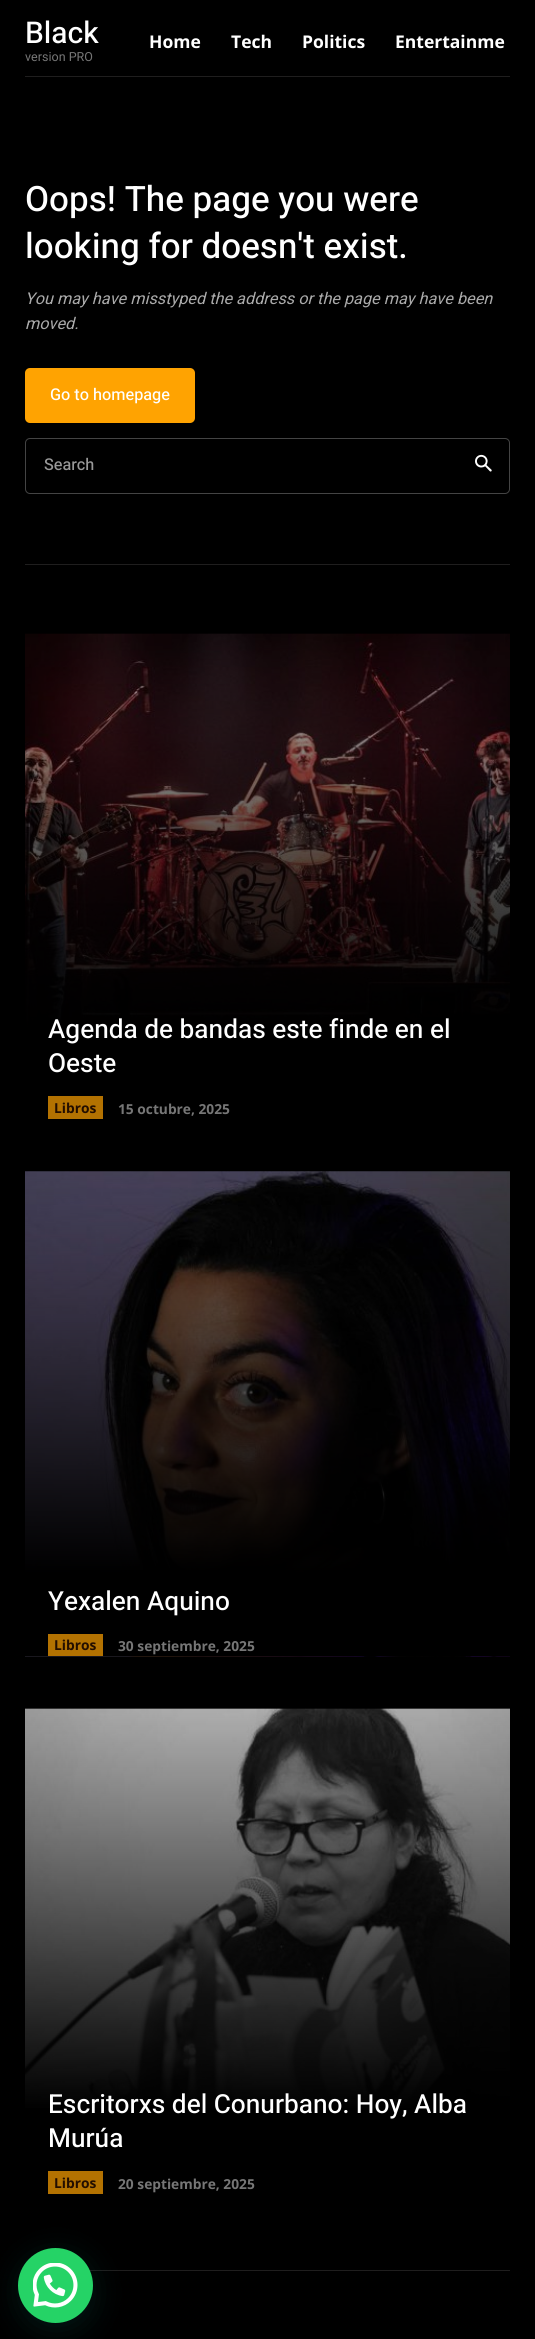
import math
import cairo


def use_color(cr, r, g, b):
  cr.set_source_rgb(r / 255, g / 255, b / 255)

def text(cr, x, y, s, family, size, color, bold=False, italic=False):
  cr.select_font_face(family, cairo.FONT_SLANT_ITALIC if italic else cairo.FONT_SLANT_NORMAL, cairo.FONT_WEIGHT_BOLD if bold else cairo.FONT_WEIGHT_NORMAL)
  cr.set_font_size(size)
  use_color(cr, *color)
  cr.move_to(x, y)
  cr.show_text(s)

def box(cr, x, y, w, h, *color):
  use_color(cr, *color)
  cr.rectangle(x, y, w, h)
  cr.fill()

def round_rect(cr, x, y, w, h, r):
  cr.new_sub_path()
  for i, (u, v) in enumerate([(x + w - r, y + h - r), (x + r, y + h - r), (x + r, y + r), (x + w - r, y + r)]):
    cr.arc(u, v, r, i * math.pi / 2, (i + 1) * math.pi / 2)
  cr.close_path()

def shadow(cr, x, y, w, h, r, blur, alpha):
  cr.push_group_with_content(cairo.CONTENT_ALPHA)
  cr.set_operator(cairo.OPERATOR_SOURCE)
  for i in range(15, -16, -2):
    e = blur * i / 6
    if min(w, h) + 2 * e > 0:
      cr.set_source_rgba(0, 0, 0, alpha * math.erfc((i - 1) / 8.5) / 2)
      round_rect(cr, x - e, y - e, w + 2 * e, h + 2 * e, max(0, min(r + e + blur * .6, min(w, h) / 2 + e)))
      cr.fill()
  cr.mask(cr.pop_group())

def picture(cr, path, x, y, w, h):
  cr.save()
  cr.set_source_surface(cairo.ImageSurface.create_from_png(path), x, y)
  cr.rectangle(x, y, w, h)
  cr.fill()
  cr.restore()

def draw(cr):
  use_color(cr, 0, 0, 0)
  cr.paint()
  box(cr, 25, 76, 485, 1, 31, 30, 30)
  use_color(cr, 255, 163, 1)
  round_rect(cr, 25, 368, 170, 55, 5)
  cr.fill()
  round_rect(cr, 25.5, 438.5, 484, 55, 4.5)
  use_color(cr, 68, 68, 68)
  cr.set_line_width(1)
  cr.stroke()
  picture(cr, "img_01.png", 475, 454, 17, 18)
  box(cr, 25, 564, 485, 1, 31, 30, 30)
  picture(cr, "img_02.png", 25, 633, 485, 400)
  gradient = cairo.LinearGradient(268, 1119, 268, 634)
  gradient.add_color_stop_rgba(0, 0, 0, 0, 1)
  gradient.add_color_stop_rgba(0.17, 0, 0, 0, 1)
  gradient.add_color_stop_rgba(1, 0, 0, 0, 0.25)
  cr.set_source(gradient)
  cr.rectangle(25, 634, 485, 399)
  cr.fill()
  box(cr, 48, 1096, 55, 23, 179, 114, 1)
  picture(cr, "img_03.png", 25, 1171, 485, 486)
  gradient = cairo.LinearGradient(268, 1656, 268, 1171)
  gradient.add_color_stop_rgba(0, 0, 0, 0, 1)
  gradient.add_color_stop_rgba(0.17, 0, 0, 0, 1)
  gradient.add_color_stop_rgba(1, 0, 0, 0, 0.25)
  cr.set_source(gradient)
  cr.rectangle(25, 1171, 485, 485)
  cr.fill()
  box(cr, 48, 1634, 55, 22, 179, 114, 1)
  picture(cr, "img_04.png", 25, 1708, 485, 400)
  gradient = cairo.LinearGradient(268, 2194, 268, 1709)
  gradient.add_color_stop_rgba(0, 0, 0, 0, 1)
  gradient.add_color_stop_rgba(0.17, 0, 0, 0, 1)
  gradient.add_color_stop_rgba(1, 0, 0, 0, 0.25)
  cr.set_source(gradient)
  cr.rectangle(25, 1709, 485, 399)
  cr.fill()
  box(cr, 48, 2171, 55, 23, 179, 114, 1)
  box(cr, 89, 2270, 421, 1, 31, 30, 30)
  use_color(cr, 7, 94, 84)
  shadow(cr, 19, 2255, 75, 75, 37.5, 15, 0.24)
  use_color(cr, 37, 211, 102)
  cr.arc(55.5, 2285.5, 37.5, 0, 2 * math.pi)
  cr.fill()
  picture(cr, "img_05.png", 33, 2263, 45, 45)
  text(cr, 25, 43, "Black", "Heebo Medium", 30, (255, 255, 255))
  text(cr, 25, 61, "version PRO", "Heebo", 12.5, (118, 118, 118))
  text(cr, 149, 48, "Home", "Open Sans", 17.5, (255, 255, 255), bold=True)
  text(cr, 231, 48, "Tech", "Open Sans", 17.5, (255, 255, 255), bold=True)
  text(cr, 302, 48, "Politics", "Open Sans", 17.5, (255, 255, 255), bold=True)
  text(cr, 395, 48, "Entertainme", "Open Sans", 17.5, (255, 255, 255), bold=True)
  text(cr, 25, 211, "Oops! The page you were", "Heebo Medium", 35, (255, 255, 255))
  text(cr, 25, 258, "looking for doesn't exist.", "Heebo Medium", 35, (255, 255, 255))
  text(cr, 25, 304, "You may have misstyped the address or the page may have been", "Heebo", 16.25, (170, 170, 170), italic=True)
  text(cr, 25, 329, "moved.", "Heebo", 16.25, (170, 170, 170), italic=True)
  text(cr, 50, 400, "Go to homepage", "Heebo Medium", 16.25, (255, 255, 255))
  text(cr, 44, 470, "Search", "Heebo Medium", 16.25, (153, 153, 153))
  text(cr, 48, 1038, "Agenda de bandas este finde en el", "Heebo Medium", 26.25, (255, 255, 255))
  text(cr, 48, 1072, "Oeste", "Heebo Medium", 26.25, (255, 255, 255))
  text(cr, 54, 1113, "Libros", "Open Sans", 13.75, (35, 14, 0), bold=True)
  text(cr, 118, 1114, "15 octubre, 2025", "Open Sans", 13.75, (118, 118, 118), bold=True)
  text(cr, 48, 1610, "Yexalen Aquino", "Heebo Medium", 26.25, (255, 255, 255))
  text(cr, 54, 1650, "Libros", "Open Sans", 13.75, (35, 14, 0), bold=True)
  text(cr, 118, 1651, "30 septiembre, 2025", "Open Sans", 13.75, (118, 118, 118), bold=True)
  text(cr, 48, 2113, "Escritorxs del Conurbano: Hoy, Alba", "Heebo Medium", 26.25, (255, 255, 255))
  text(cr, 48, 2147, "Murúa", "Heebo Medium", 26.25, (255, 255, 255))
  text(cr, 54, 2188, "Libros", "Open Sans", 13.75, (35, 14, 0), bold=True)
  text(cr, 118, 2189, "20 septiembre, 2025", "Open Sans", 13.75, (118, 118, 118), bold=True)


surface = cairo.ImageSurface(cairo.FORMAT_RGB24, 535, 2339)
cr = cairo.Context(surface)
options = cairo.FontOptions()
options.set_hint_metrics(cairo.HINT_METRICS_OFF)
options.set_hint_style(cairo.HINT_STYLE_NONE)
cr.set_font_options(options)
cr.set_miter_limit(4)
draw(cr)
surface.write_to_png("out.png")
